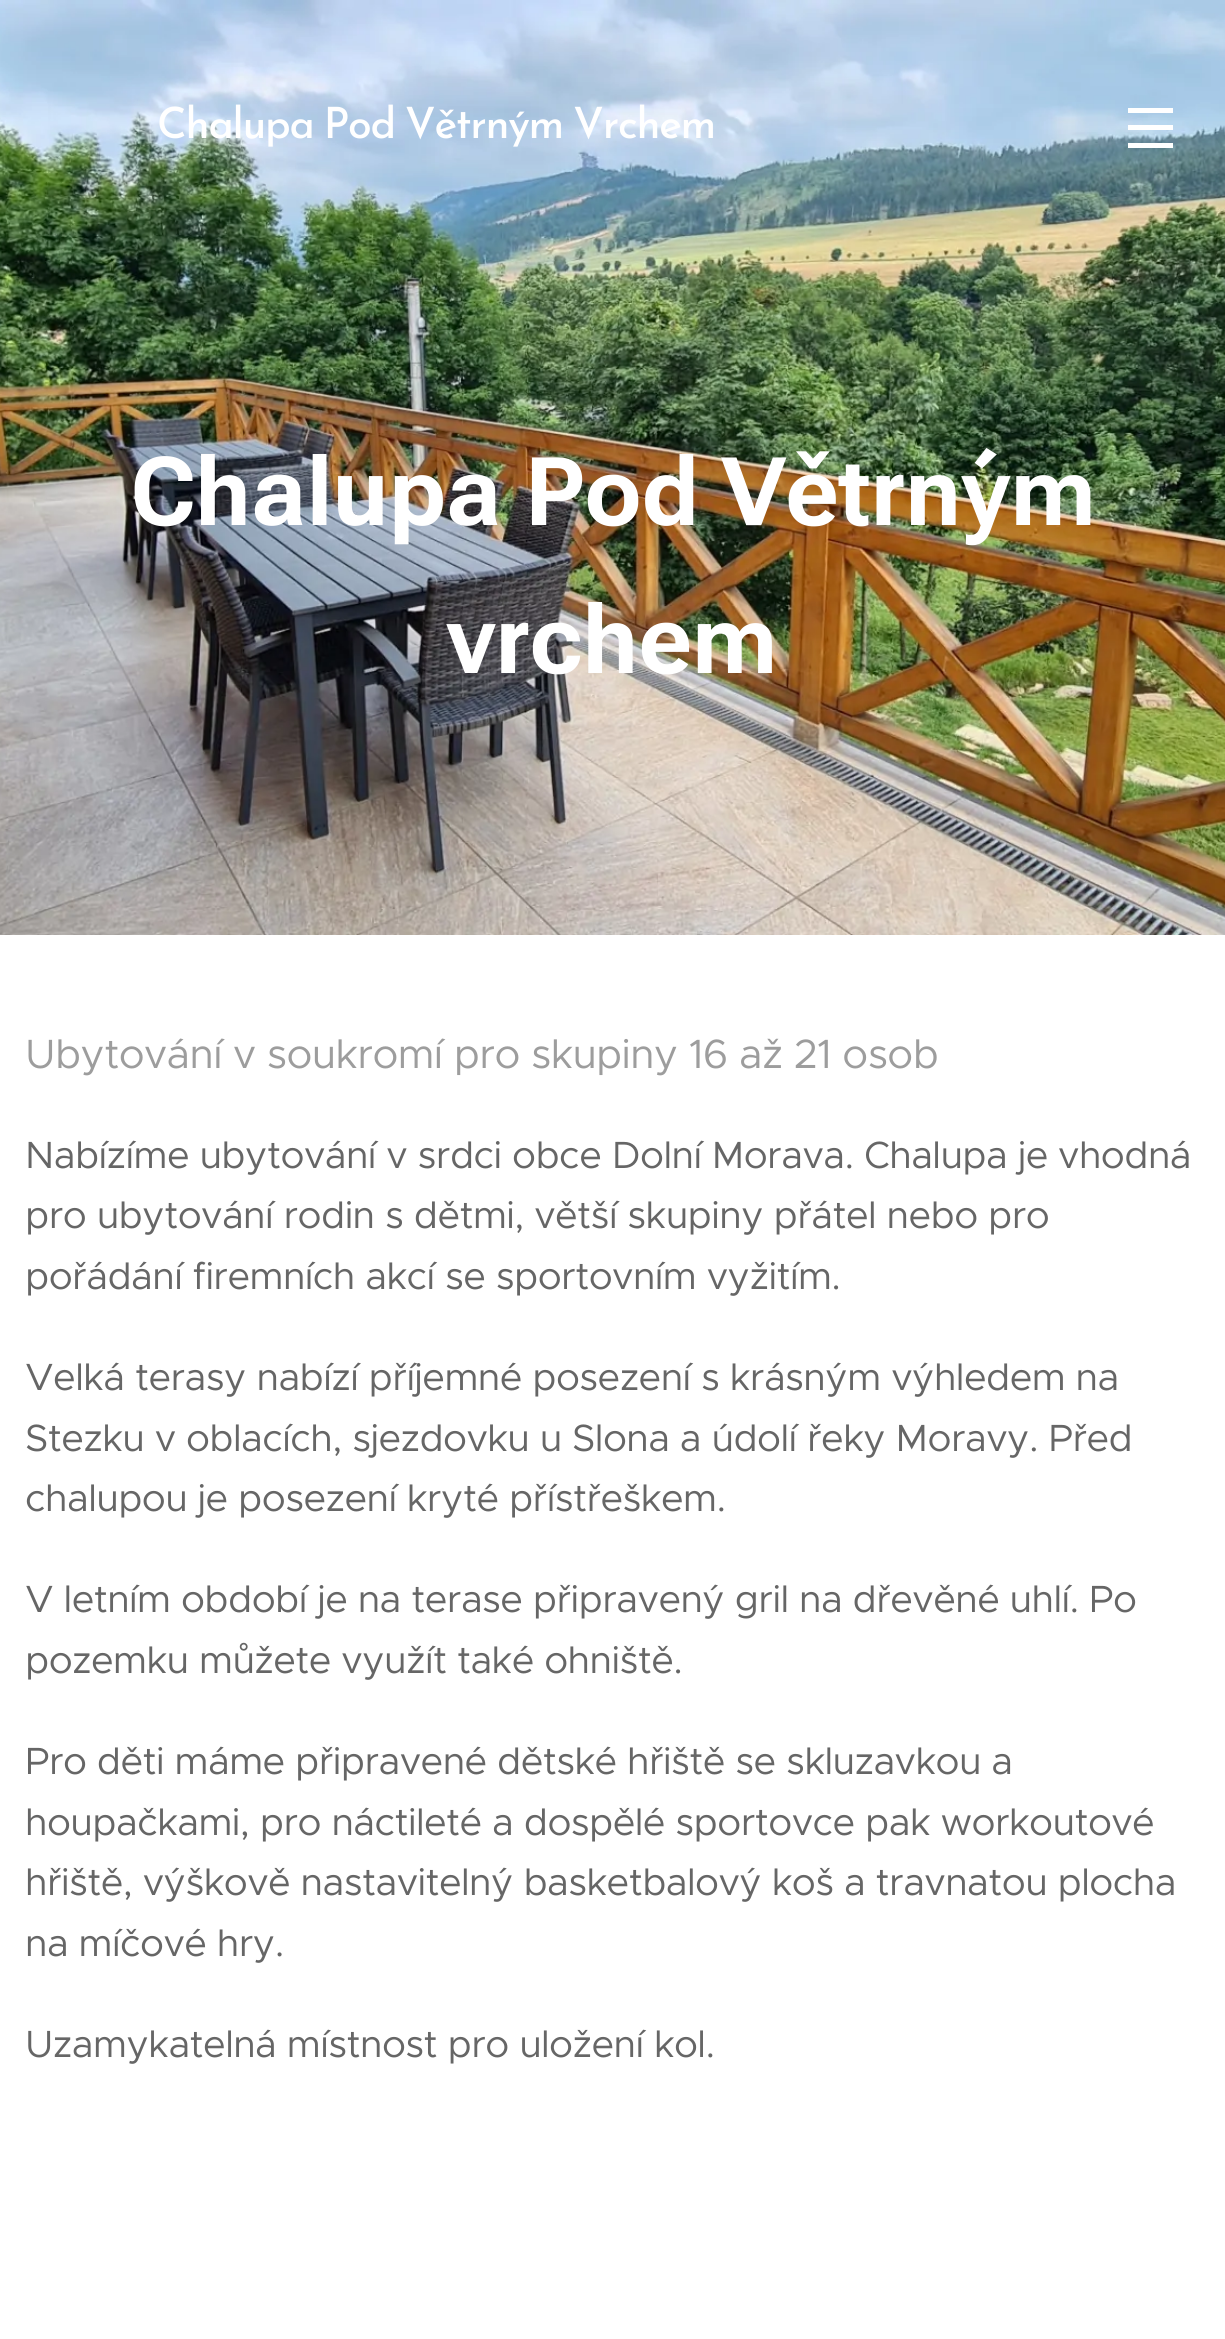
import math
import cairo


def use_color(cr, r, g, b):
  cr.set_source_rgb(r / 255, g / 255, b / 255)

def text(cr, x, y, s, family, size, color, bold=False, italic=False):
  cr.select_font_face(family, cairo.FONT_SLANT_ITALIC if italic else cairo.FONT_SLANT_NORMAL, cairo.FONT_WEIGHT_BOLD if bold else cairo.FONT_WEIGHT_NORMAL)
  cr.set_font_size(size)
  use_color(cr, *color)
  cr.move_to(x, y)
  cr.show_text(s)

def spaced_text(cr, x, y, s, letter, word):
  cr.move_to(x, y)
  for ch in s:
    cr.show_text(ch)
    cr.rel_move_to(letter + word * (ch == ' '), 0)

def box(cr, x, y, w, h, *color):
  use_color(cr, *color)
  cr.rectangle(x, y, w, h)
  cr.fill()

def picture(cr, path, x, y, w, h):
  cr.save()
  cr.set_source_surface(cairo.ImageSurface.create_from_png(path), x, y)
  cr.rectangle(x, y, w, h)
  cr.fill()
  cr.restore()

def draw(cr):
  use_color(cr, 255, 255, 255)
  cr.paint()
  picture(cr, "img_01.png", 0, 0, 1225, 935)
  box(cr, 1128, 125, 45, 5, 255, 255, 255)
  box(cr, 1128, 108, 45, 5, 255, 255, 255)
  box(cr, 1128, 143, 45, 5, 255, 255, 255)
  cr.select_font_face("Josefin Sans Medium")
  cr.set_font_size(43)
  spaced_text(cr, 157, 138, "Chalupa Pod Větrným Vrchem", -1.3, -2.5)
  text(cr, 130, 525, "Chalupa Pod Větrným", "Roboto Flex", 95, (255, 255, 255), bold=True)
  text(cr, 447, 673, "vrchem", "Roboto Flex", 95, (255, 255, 255), bold=True)
  cr.select_font_face("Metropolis")
  cr.set_font_size(41)
  use_color(cr, 157, 157, 157)
  spaced_text(cr, 25, 1068, "Ubytování v soukromí pro skupiny 16 až 21 osob", -0.6, 0)
  cr.set_font_size(38)
  use_color(cr, 102, 102, 102)
  spaced_text(cr, 25, 1168, "Nabízíme ubytování v srdci obce Dolní Morava. Chalupa je vhodná", -0.57, 0)
  spaced_text(cr, 25, 1228, "pro ubytování rodin s dětmi, větší skupiny přátel nebo pro", -0.57, 0)
  spaced_text(cr, 25, 1289, "pořádání firemních akcí se sportovním vyžitím.", -0.57, 0)
  spaced_text(cr, 25, 1390, "Velká terasy nabízí příjemné posezení s krásným výhledem na", -0.57, 0)
  spaced_text(cr, 25, 1451, "Stezku v oblacích, sjezdovku u Slona a údolí řeky Moravy. Před", -0.57, 0)
  spaced_text(cr, 25, 1511, "chalupou je posezení kryté přístřeškem.", -0.57, 0)
  spaced_text(cr, 25, 1612, "V letním období je na terase připravený gril na dřevěné uhlí. Po", -0.57, 0)
  spaced_text(cr, 25, 1673, "pozemku můžete využít také ohniště.", -0.57, 0)
  spaced_text(cr, 25, 1774, "Pro děti máme připravené dětské hřiště se skluzavkou a", -0.57, 0)
  spaced_text(cr, 25, 1835, "houpačkami, pro náctileté a dospělé sportovce pak workoutové", -0.57, 0)
  spaced_text(cr, 25, 1895, "hřiště, výškově nastavitelný basketbalový koš a travnatou plocha", -0.57, 0)
  spaced_text(cr, 25, 1956, "na míčové hry.", -0.57, 0)
  spaced_text(cr, 25, 2057, "Uzamykatelná místnost pro uložení kol.", -0.57, 0)


surface = cairo.ImageSurface(cairo.FORMAT_RGB24, 1225, 2339)
cr = cairo.Context(surface)
options = cairo.FontOptions()
options.set_hint_metrics(cairo.HINT_METRICS_OFF)
options.set_hint_style(cairo.HINT_STYLE_NONE)
cr.set_font_options(options)
cr.set_miter_limit(4)
draw(cr)
surface.write_to_png("out.png")
